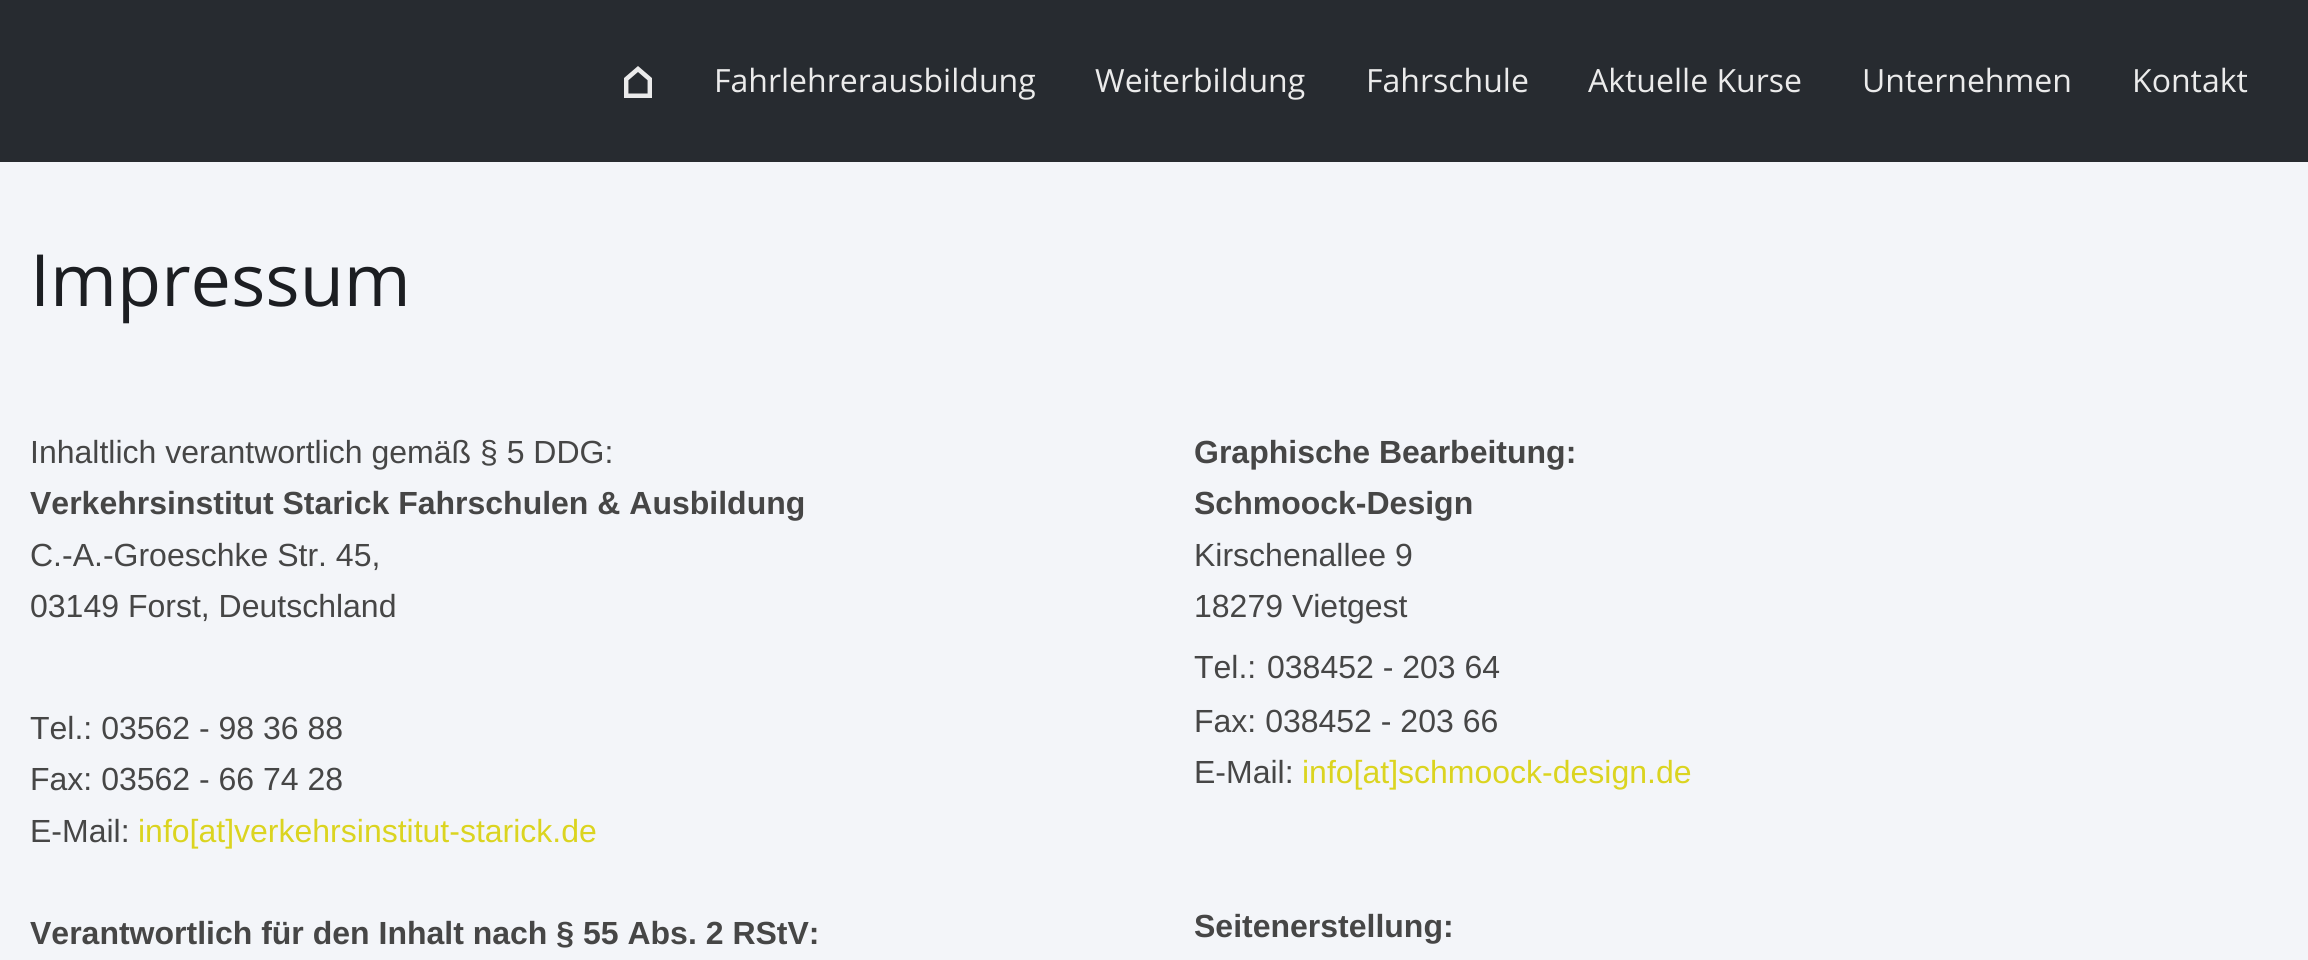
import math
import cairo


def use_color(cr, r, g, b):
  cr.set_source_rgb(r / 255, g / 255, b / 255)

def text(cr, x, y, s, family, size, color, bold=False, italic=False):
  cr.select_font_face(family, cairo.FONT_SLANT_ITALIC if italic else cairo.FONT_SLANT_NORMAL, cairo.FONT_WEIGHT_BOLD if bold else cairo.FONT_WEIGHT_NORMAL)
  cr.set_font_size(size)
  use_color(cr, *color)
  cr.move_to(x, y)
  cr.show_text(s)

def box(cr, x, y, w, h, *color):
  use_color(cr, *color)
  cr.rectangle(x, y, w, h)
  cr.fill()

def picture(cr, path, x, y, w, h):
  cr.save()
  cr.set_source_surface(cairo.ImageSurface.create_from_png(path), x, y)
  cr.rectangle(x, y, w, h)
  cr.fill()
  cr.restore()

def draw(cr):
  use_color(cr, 243, 245, 249)
  cr.paint()
  box(cr, 0, 0, 2308, 162, 39, 43, 48)
  picture(cr, "img_01.png", 624, 66, 28, 32)
  text(cr, 714, 92, "Fahrlehrerausbildung", "Open Sans", 32, (235, 235, 235))
  text(cr, 1095, 92, "Weiterbildung", "Open Sans", 32, (235, 235, 235))
  text(cr, 1366, 92, "Fahrschule", "Open Sans", 32, (235, 235, 235))
  text(cr, 1588, 92, "Aktuelle Kurse", "Open Sans", 32, (235, 235, 235))
  text(cr, 1862, 92, "Unternehmen", "Open Sans", 32, (235, 235, 235))
  text(cr, 2132, 92, "Kontakt", "Open Sans", 32, (235, 235, 235))
  text(cr, 30, 306, "Impressum", "Open Sans", 72, (28, 30, 34))
  text(cr, 30, 463, "Inhaltlich verantwortlich gemäß § 5 DDG:", "Liberation Sans", 32, (70, 70, 70))
  text(cr, 30, 514, "Verkehrsinstitut Starick Fahrschulen & Ausbildung", "Liberation Sans", 32, (70, 70, 70), bold=True)
  text(cr, 30, 566, "C.-A.-Groeschke Str. 45,", "Liberation Sans", 32, (70, 70, 70))
  text(cr, 30, 617, "03149 Forst, Deutschland", "Liberation Sans", 32, (70, 70, 70))
  text(cr, 30, 739, "Tel.: 03562 - 98 36 88", "Liberation Sans", 32, (70, 70, 70))
  text(cr, 30, 790, "Fax: 03562 - 66 74 28", "Liberation Sans", 32, (70, 70, 70))
  text(cr, 30, 842, "E-Mail:", "Liberation Sans", 32, (70, 70, 70))
  text(cr, 138, 842, "info[at]verkehrsinstitut-starick.de", "Liberation Sans", 32, (219, 212, 32))
  text(cr, 30, 944, "Verantwortlich für den Inhalt nach § 55 Abs. 2 RStV:", "Liberation Sans", 32, (70, 70, 70), bold=True)
  text(cr, 1194, 463, "Graphische Bearbeitung:", "Liberation Sans", 32, (70, 70, 70), bold=True)
  text(cr, 1194, 514, "Schmoock-Design", "Liberation Sans", 32, (70, 70, 70), bold=True)
  text(cr, 1194, 566, "Kirschenallee 9", "Liberation Sans", 32, (70, 70, 70))
  text(cr, 1194, 617, "18279 Vietgest", "Liberation Sans", 32, (70, 70, 70))
  text(cr, 1194, 678, "Tel.:", "Liberation Sans", 32, (70, 70, 70))
  text(cr, 1267, 678, "038452 - 203 64", "Liberation Sans", 32, (70, 70, 70))
  text(cr, 1194, 732, "Fax: 038452 - 203 66", "Liberation Sans", 32, (70, 70, 70))
  text(cr, 1194, 783, "E-Mail:", "Liberation Sans", 32, (70, 70, 70))
  text(cr, 1302, 783, "info[at]schmoock-design.de", "Liberation Sans", 32, (219, 212, 32))
  text(cr, 1194, 937, "Seitenerstellung:", "Liberation Sans", 32, (70, 70, 70), bold=True)


surface = cairo.ImageSurface(cairo.FORMAT_RGB24, 2308, 960)
cr = cairo.Context(surface)
options = cairo.FontOptions()
options.set_hint_metrics(cairo.HINT_METRICS_OFF)
options.set_hint_style(cairo.HINT_STYLE_NONE)
cr.set_font_options(options)
cr.set_miter_limit(4)
draw(cr)
surface.write_to_png("out.png")
